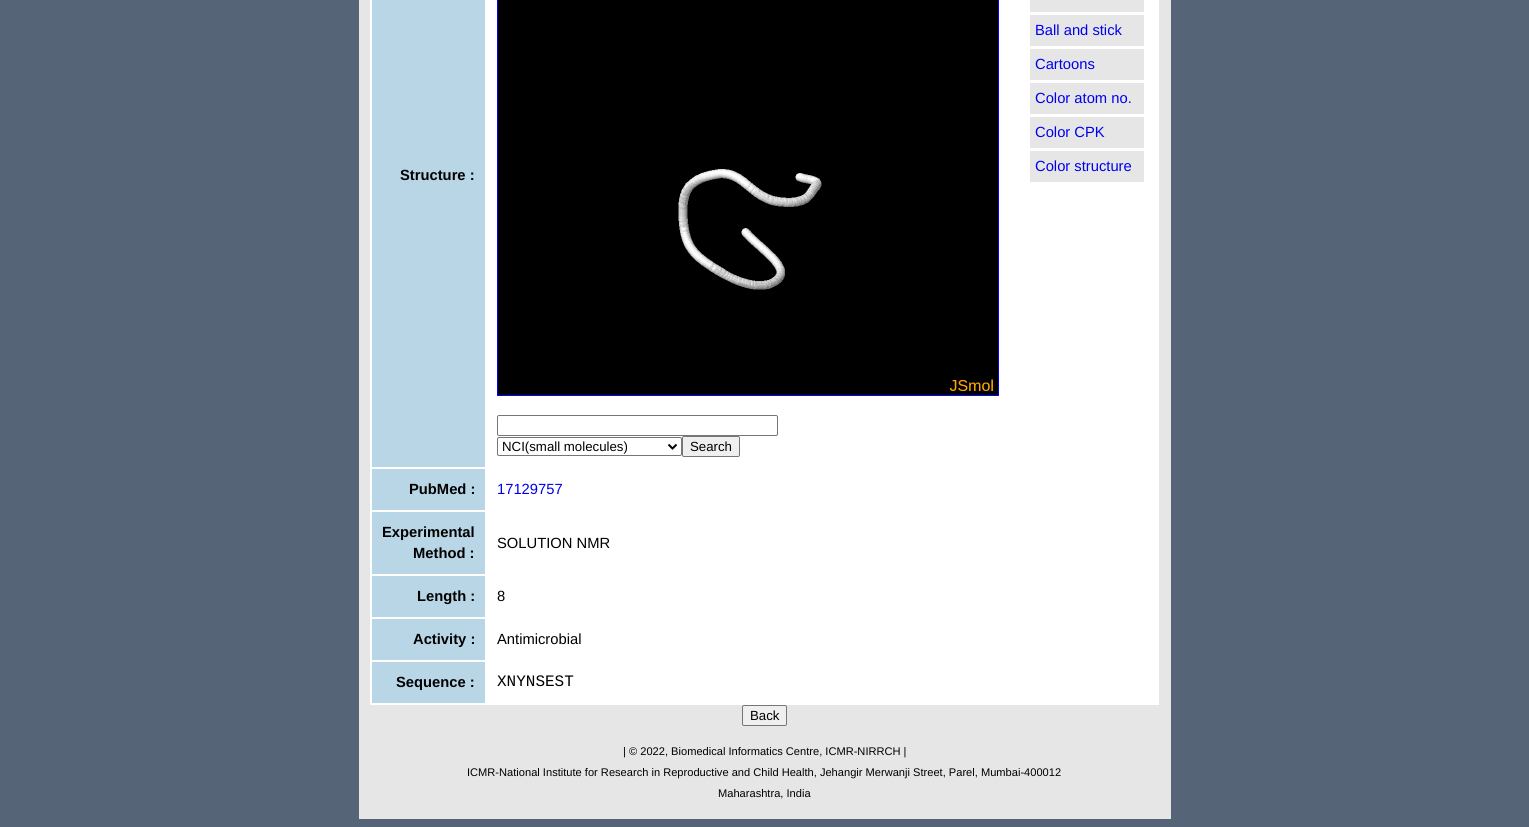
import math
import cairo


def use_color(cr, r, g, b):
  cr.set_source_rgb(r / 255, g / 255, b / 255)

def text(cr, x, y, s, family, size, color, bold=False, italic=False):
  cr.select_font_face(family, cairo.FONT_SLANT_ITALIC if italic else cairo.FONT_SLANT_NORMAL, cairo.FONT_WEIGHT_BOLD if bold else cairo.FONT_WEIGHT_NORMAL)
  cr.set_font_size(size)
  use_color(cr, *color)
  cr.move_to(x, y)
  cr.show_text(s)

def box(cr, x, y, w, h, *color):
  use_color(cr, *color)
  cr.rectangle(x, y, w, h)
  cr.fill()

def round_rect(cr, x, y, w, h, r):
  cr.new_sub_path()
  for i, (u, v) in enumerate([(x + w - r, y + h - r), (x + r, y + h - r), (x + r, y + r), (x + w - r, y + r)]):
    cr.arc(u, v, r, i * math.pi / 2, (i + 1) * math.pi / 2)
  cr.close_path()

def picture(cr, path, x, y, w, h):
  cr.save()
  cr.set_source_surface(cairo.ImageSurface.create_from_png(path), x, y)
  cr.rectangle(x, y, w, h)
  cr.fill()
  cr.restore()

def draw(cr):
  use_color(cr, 85, 100, 119)
  cr.paint()
  box(cr, 359, 0, 812, 819, 230, 230, 230)
  box(cr, 370, 0, 789, 705, 255, 255, 255)
  box(cr, 372, 0, 113, 467, 185, 214, 230)
  box(cr, 1030, 0, 114, 12, 230, 230, 230)
  box(cr, 1030, 15, 114, 31, 230, 230, 230)
  box(cr, 1030, 49, 114, 31, 230, 230, 230)
  box(cr, 1030, 83, 114, 31, 230, 230, 230)
  box(cr, 1030, 117, 114, 31, 230, 230, 230)
  box(cr, 1030, 151, 114, 31, 230, 230, 230)
  cr.rectangle(497.5, -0.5, 501, 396)
  use_color(cr, 0, 0, 255)
  cr.set_line_width(1)
  cr.stroke()
  picture(cr, "img_01.png", 498, 0, 500, 395)
  round_rect(cr, 497.5, 415.5, 280, 20, 1.5)
  use_color(cr, 118, 118, 118)
  cr.stroke()
  round_rect(cr, 497.5, 437.5, 184, 18, 1.5)
  cr.stroke()
  cr.new_path()
  cr.move_to(668.5, 444.5)
  cr.line_to(672.5, 448.5)
  cr.line_to(676.5, 444.5)
  use_color(cr, 0, 0, 0)
  cr.set_line_width(2)
  cr.stroke()
  use_color(cr, 239, 239, 239)
  round_rect(cr, 682.5, 436.5, 57, 20, 1.5)
  cr.fill_preserve()
  use_color(cr, 118, 118, 118)
  cr.set_line_width(1)
  cr.stroke()
  box(cr, 372, 469, 113, 41, 185, 214, 230)
  box(cr, 372, 512, 113, 62, 185, 214, 230)
  box(cr, 372, 576, 113, 41, 185, 214, 230)
  box(cr, 372, 619, 113, 41, 185, 214, 230)
  box(cr, 372, 662, 113, 41, 185, 214, 230)
  use_color(cr, 239, 239, 239)
  round_rect(cr, 742.5, 705.5, 44, 20, 1.5)
  cr.fill_preserve()
  use_color(cr, 118, 118, 118)
  cr.stroke()
  text(cr, 400, 180, "Structure :", "Liberation Sans", 14.75, (0, 0, 0), bold=True)
  text(cr, 1035, 35, "Ball and stick", "Liberation Sans", 14.75, (0, 0, 238))
  text(cr, 1035, 69, "Cartoons", "Liberation Sans", 14.75, (0, 0, 238))
  text(cr, 1035, 103, "Color atom no.", "Liberation Sans", 14.75, (0, 0, 238))
  text(cr, 1035, 137, "Color CPK", "Liberation Sans", 14.75, (0, 0, 238))
  text(cr, 1035, 171, "Color structure", "Liberation Sans", 14.75, (0, 0, 238))
  text(cr, 502, 451, "NCI(small molecules)", "Liberation Sans", 13.25, (0, 0, 0))
  text(cr, 690, 451, "Search", "Liberation Sans", 13.25, (0, 0, 0))
  text(cr, 409, 494, "PubMed :", "Liberation Sans", 14.75, (0, 0, 0), bold=True)
  text(cr, 497, 494, "17129757", "Liberation Sans", 14.75, (0, 0, 238))
  text(cr, 382, 537, "Experimental", "Liberation Sans", 14.75, (0, 0, 0), bold=True)
  text(cr, 413, 558, "Method :", "Liberation Sans", 14.75, (0, 0, 0), bold=True)
  text(cr, 497, 548, "SOLUTION NMR", "Liberation Sans", 14.75, (0, 0, 0))
  text(cr, 417, 601, "Length :", "Liberation Sans", 14.75, (0, 0, 0), bold=True)
  text(cr, 497, 601, "8", "Liberation Sans", 14.75, (0, 0, 0))
  text(cr, 413, 644, "Activity :", "Liberation Sans", 14.75, (0, 0, 0), bold=True)
  text(cr, 497, 644, "Antimicrobial", "Liberation Sans", 14.75, (0, 0, 0))
  text(cr, 396, 687, "Sequence :", "Liberation Sans", 14.75, (0, 0, 0), bold=True)
  text(cr, 497, 686, "XNYNSEST", "Liberation Mono", 16, (0, 0, 0))
  text(cr, 750, 720, "Back", "Liberation Sans", 13.25, (0, 0, 0))
  text(cr, 623, 755, "| © 2022, Biomedical Informatics Centre, ICMR-NIRRCH |", "Liberation Sans", 11.1, (0, 0, 0))
  text(cr, 467, 776, "ICMR-National Institute for Research in Reproductive and Child Health, Jehangir Merwanji Street, Parel, Mumbai-400012", "Liberation Sans", 11.1, (0, 0, 0))
  text(cr, 718, 797, "Maharashtra, India", "Liberation Sans", 11.1, (0, 0, 0))


surface = cairo.ImageSurface(cairo.FORMAT_RGB24, 1529, 827)
cr = cairo.Context(surface)
options = cairo.FontOptions()
options.set_hint_metrics(cairo.HINT_METRICS_OFF)
options.set_hint_style(cairo.HINT_STYLE_NONE)
cr.set_font_options(options)
cr.set_miter_limit(4)
draw(cr)
surface.write_to_png("out.png")
